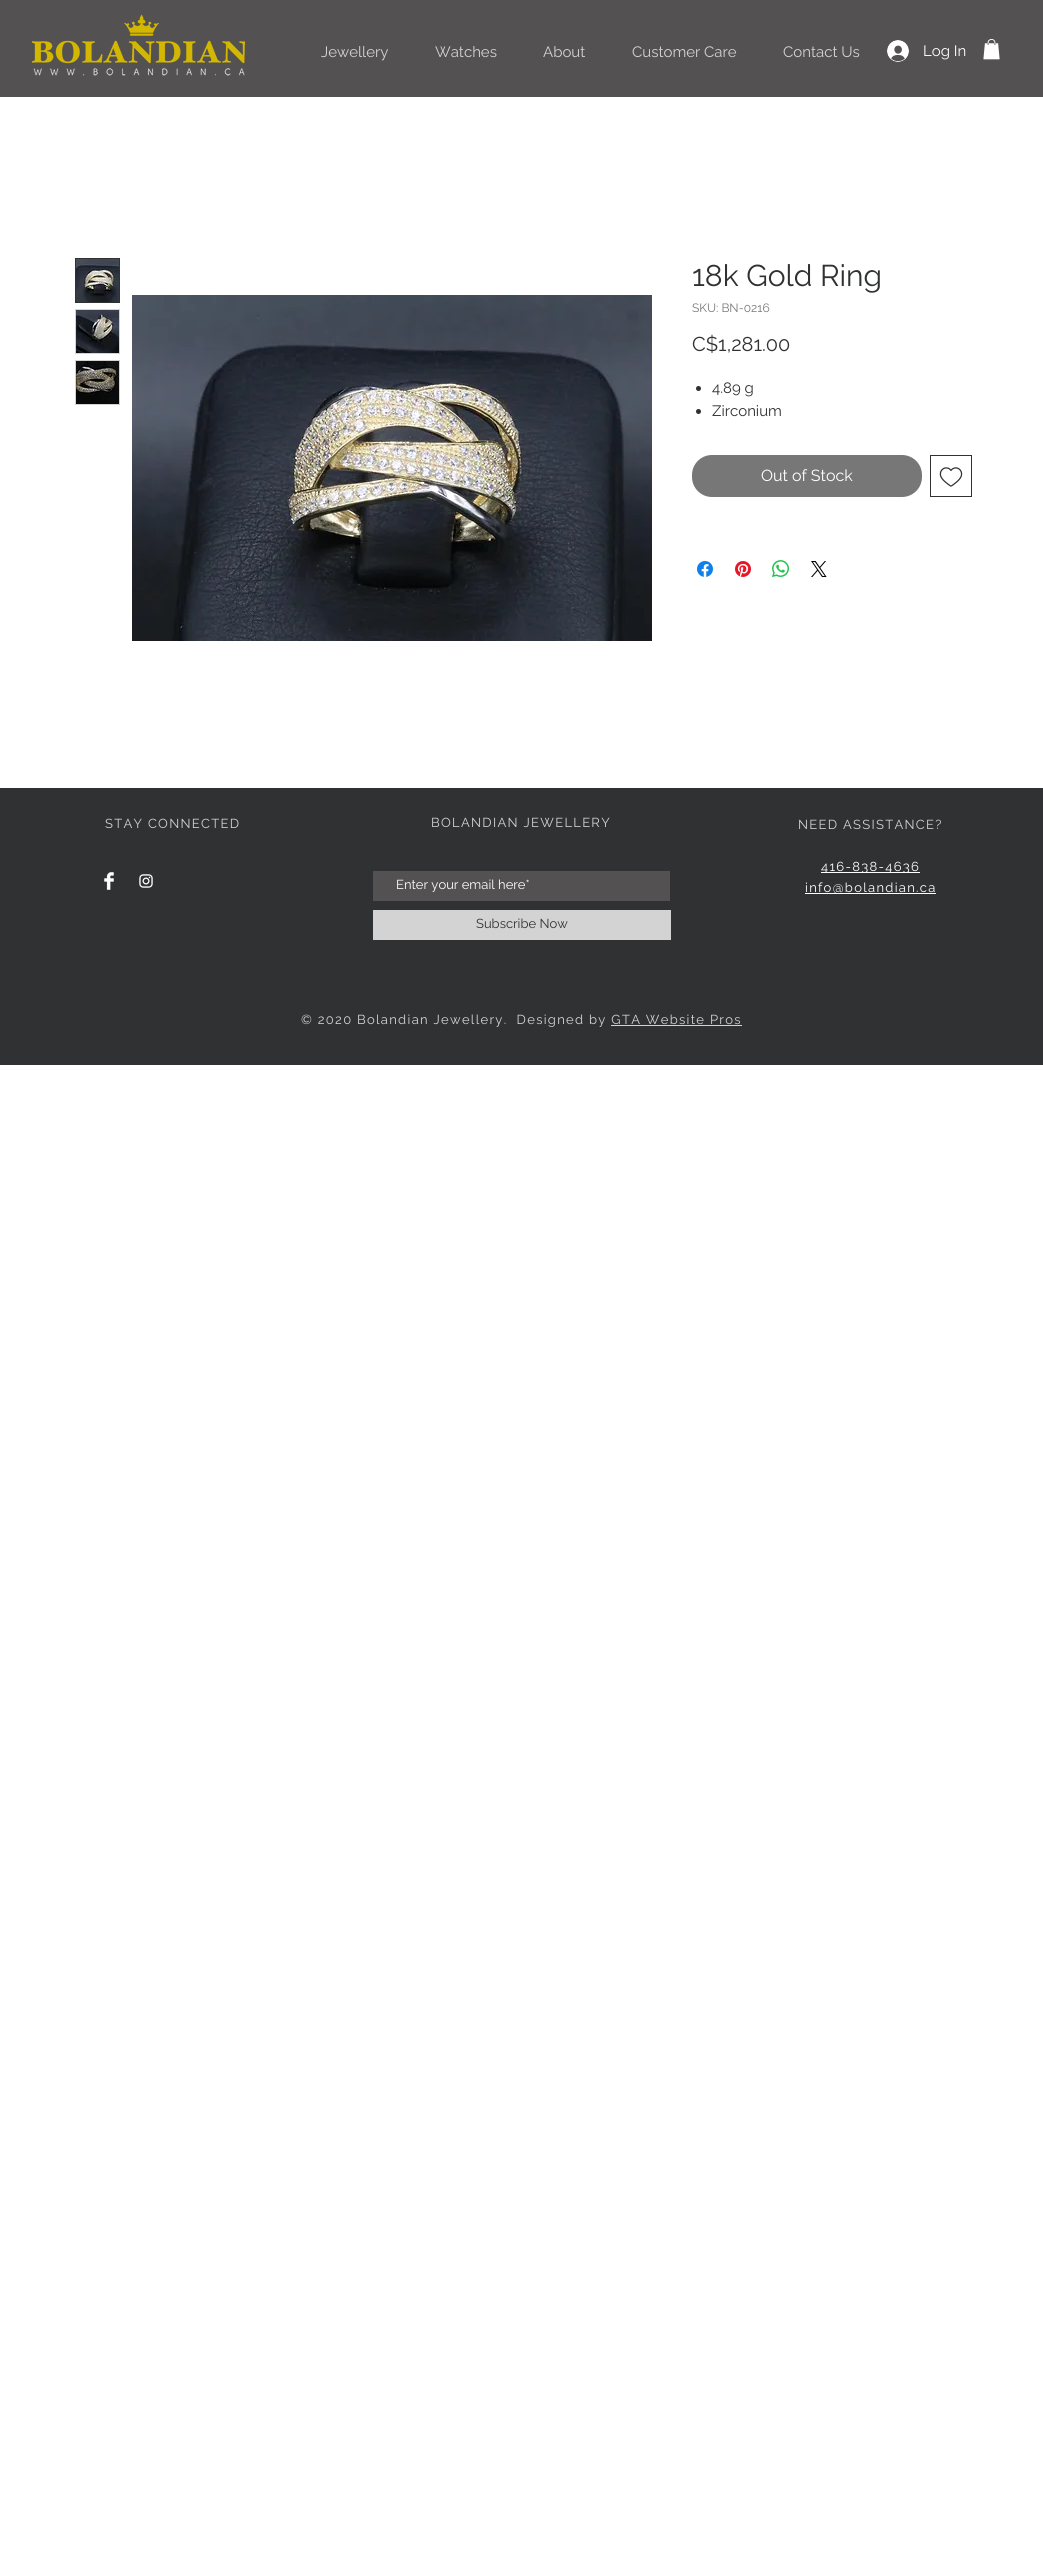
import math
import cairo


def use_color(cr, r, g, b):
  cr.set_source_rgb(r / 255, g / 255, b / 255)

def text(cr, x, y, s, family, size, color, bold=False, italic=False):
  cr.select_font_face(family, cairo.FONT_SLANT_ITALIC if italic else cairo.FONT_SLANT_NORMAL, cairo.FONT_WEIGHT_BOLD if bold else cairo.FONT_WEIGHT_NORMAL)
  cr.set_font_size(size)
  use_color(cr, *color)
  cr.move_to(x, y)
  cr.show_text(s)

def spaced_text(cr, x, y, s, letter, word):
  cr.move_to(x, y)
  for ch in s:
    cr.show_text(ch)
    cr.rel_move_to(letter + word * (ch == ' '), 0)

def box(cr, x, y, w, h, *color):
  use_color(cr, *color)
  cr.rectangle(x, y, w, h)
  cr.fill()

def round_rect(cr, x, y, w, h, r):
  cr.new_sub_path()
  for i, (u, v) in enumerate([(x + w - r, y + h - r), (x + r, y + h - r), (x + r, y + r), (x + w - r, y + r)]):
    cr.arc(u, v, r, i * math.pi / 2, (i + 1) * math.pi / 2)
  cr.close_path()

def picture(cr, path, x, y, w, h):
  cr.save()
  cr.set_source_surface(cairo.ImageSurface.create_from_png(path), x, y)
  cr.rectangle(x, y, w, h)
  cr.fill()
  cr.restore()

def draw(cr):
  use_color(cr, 255, 255, 255)
  cr.paint()
  box(cr, 0, 0, 1043, 97, 83, 81, 81)
  picture(cr, "img_01.png", 32, 14, 213, 62)
  picture(cr, "img_02.png", 887, 40, 22, 22)
  picture(cr, "img_03.png", 983, 39, 17, 21)
  cr.rectangle(75.5, 258.5, 44, 44)
  use_color(cr, 48, 49, 50)
  cr.set_line_width(1)
  cr.stroke()
  picture(cr, "img_04.png", 76, 259, 43, 43)
  box(cr, 75, 309, 45, 45, 211, 211, 211)
  picture(cr, "img_05.png", 76, 310, 43, 43)
  box(cr, 75, 360, 45, 45, 211, 211, 211)
  picture(cr, "img_06.png", 76, 361, 43, 43)
  picture(cr, "img_07.png", 132, 295, 520, 346)
  use_color(cr, 48, 49, 50)
  cr.arc(698.5, 388.5, 2.5, 0, 2 * math.pi)
  cr.fill()
  cr.arc(698.5, 411.5, 2.5, 0, 2 * math.pi)
  cr.fill()
  use_color(cr, 119, 119, 119)
  round_rect(cr, 692, 455, 230, 42, 20)
  cr.fill()
  cr.rectangle(930.5, 455.5, 41, 41)
  use_color(cr, 48, 49, 50)
  cr.stroke()
  picture(cr, "img_08.png", 939, 467, 24, 20)
  picture(cr, "img_09.png", 697, 561, 16, 16)
  picture(cr, "img_10.png", 735, 561, 16, 16)
  picture(cr, "img_11.png", 772, 560, 17, 17)
  picture(cr, "img_12.png", 811, 561, 16, 16)
  box(cr, 0, 788, 1043, 277, 48, 49, 50)
  box(cr, 821, 872, 99, 1, 255, 255, 255)
  box(cr, 805, 893, 131, 1, 255, 255, 255)
  picture(cr, "img_13.png", 104, 872, 10, 18)
  picture(cr, "img_14.png", 139, 874, 14, 14)
  box(cr, 373, 871, 297, 30, 83, 81, 81)
  box(cr, 373, 910, 298, 30, 211, 211, 211)
  box(cr, 611, 1025, 131, 1, 211, 211, 211)
  text(cr, 321, 57, "Jewellery", "Raleway", 15, (211, 211, 211))
  text(cr, 435, 57, "Watches", "Raleway", 15, (211, 211, 211))
  text(cr, 543, 57, "About", "Raleway", 15, (211, 211, 211))
  text(cr, 632, 57, "Customer Care", "Raleway", 15, (211, 211, 211))
  text(cr, 783, 57, "Contact Us", "Raleway", 15, (211, 211, 211))
  text(cr, 923, 56, "Log In", "Raleway", 15, (255, 255, 255))
  text(cr, 692, 286, "18k Gold Ring", "Raleway", 30, (48, 49, 50))
  text(cr, 692, 312, "SKU: BN-0216", "Raleway", 12, (119, 119, 119))
  text(cr, 692, 351, "C$1,281.00", "Raleway", 20, (48, 49, 50))
  text(cr, 712, 393, "4.89 g", "Raleway", 15, (48, 49, 50))
  text(cr, 712, 416, "Zirconium", "Raleway", 15, (48, 49, 50))
  text(cr, 761, 481, "Out of Stock", "Raleway", 16, (255, 255, 255))
  cr.set_font_size(13)
  use_color(cr, 211, 211, 211)
  spaced_text(cr, 105, 828, "STAY CONNECTED", 1.3, 0)
  spaced_text(cr, 431, 827, "BOLANDIAN JEWELLERY", 1.3, 0)
  spaced_text(cr, 798, 829, "NEED ASSISTANCE?", 1.3, 0)
  use_color(cr, 255, 255, 255)
  spaced_text(cr, 821, 871, "416-838-4636", 1.3, 0)
  spaced_text(cr, 805, 892, "info@bolandian.ca", 1.3, 0)
  text(cr, 396, 889, "Enter your email here*", "Raleway", 13, (255, 255, 255))
  text(cr, 476, 928, "Subscribe Now", "Raleway", 13, (48, 49, 50))
  use_color(cr, 211, 211, 211)
  spaced_text(cr, 301, 1024, "© 2020 Bolandian Jewellery.  Designed by GTA Website Pros", 1.3, 0)


surface = cairo.ImageSurface(cairo.FORMAT_RGB24, 1043, 2563)
cr = cairo.Context(surface)
options = cairo.FontOptions()
options.set_hint_metrics(cairo.HINT_METRICS_OFF)
options.set_hint_style(cairo.HINT_STYLE_NONE)
cr.set_font_options(options)
cr.set_miter_limit(4)
draw(cr)
surface.write_to_png("out.png")
